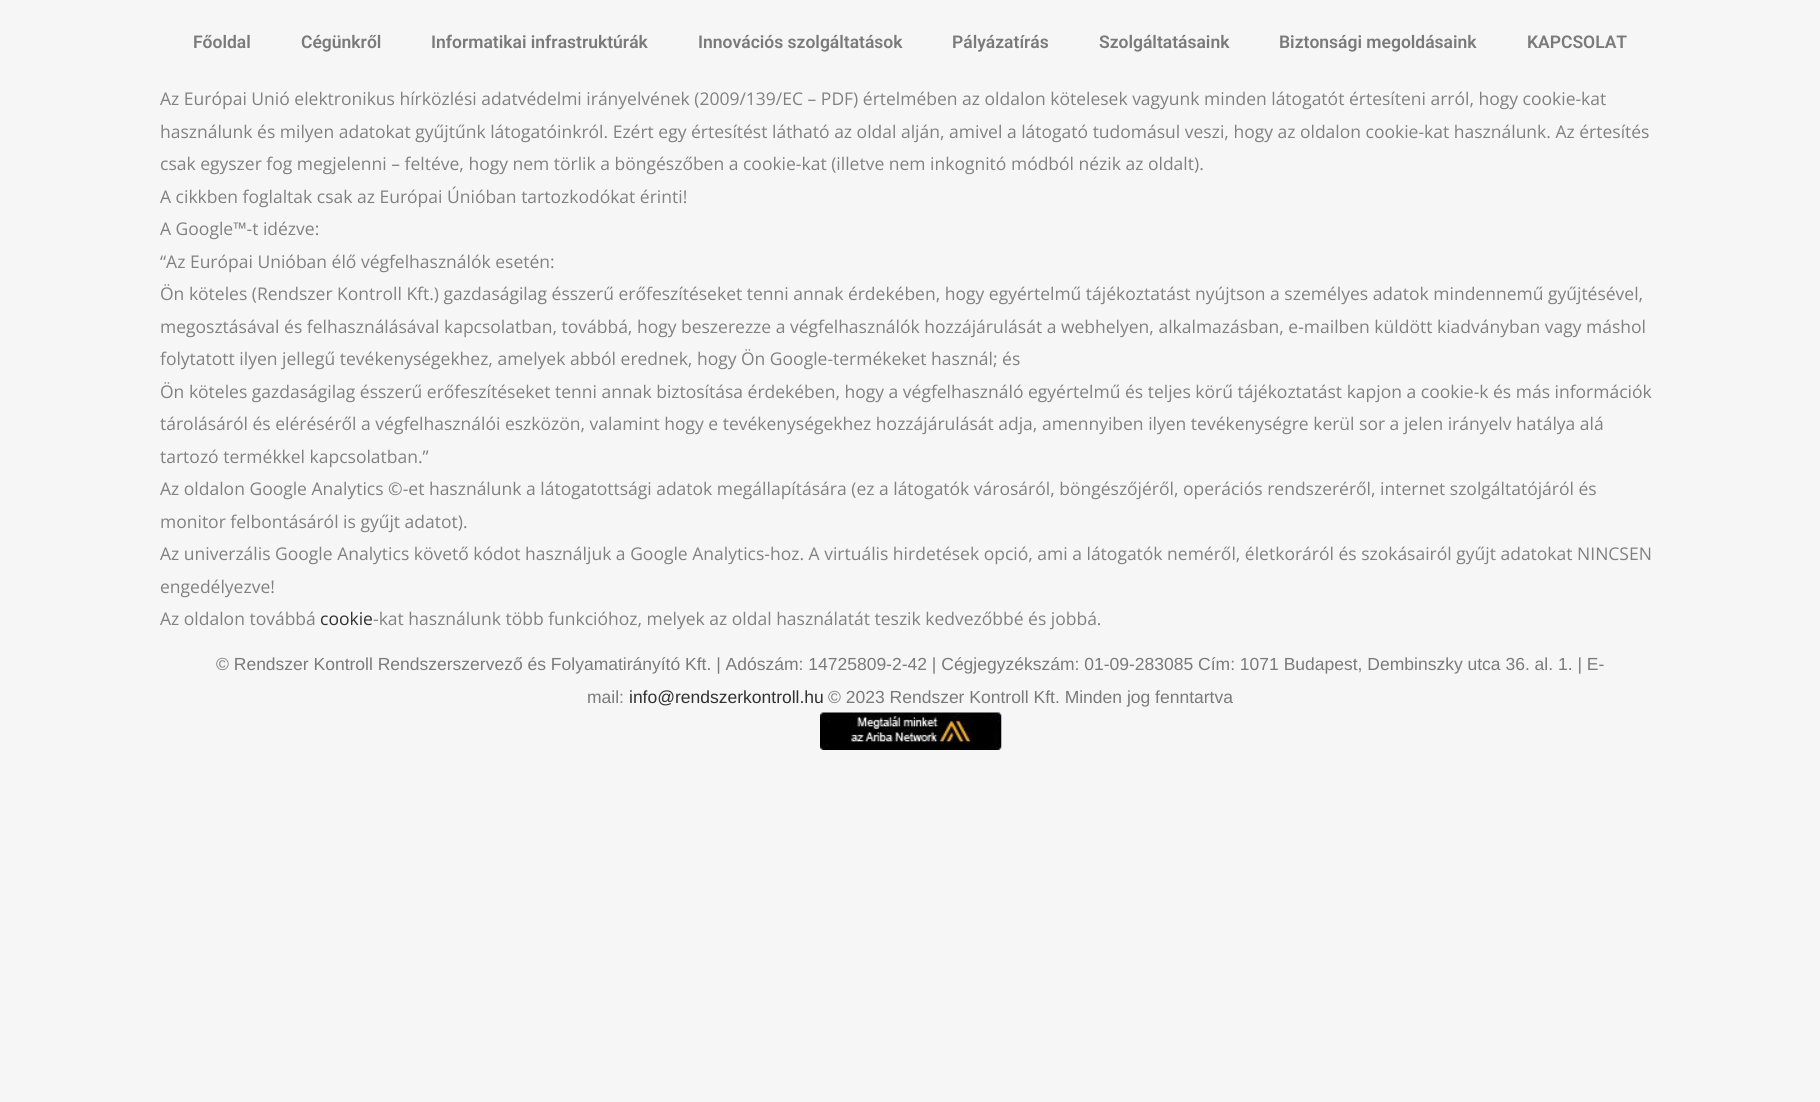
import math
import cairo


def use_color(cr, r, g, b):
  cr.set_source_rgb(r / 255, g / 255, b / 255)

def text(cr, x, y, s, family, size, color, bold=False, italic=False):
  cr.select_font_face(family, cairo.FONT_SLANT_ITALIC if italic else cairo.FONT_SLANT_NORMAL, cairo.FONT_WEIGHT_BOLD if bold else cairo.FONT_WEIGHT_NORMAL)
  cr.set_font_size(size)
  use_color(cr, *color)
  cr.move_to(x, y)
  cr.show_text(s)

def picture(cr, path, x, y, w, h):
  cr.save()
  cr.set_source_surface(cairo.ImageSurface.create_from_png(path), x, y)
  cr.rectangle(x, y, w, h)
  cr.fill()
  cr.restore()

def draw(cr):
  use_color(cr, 246, 246, 246)
  cr.paint()
  picture(cr, "img_01.png", 820, 712, 182, 38)
  text(cr, 193, 48, "Főoldal", "Roboto SemiBold", 17.5, (122, 122, 122))
  text(cr, 301, 48, "Cégünkről", "Roboto SemiBold", 17.5, (122, 122, 122))
  text(cr, 431, 48, "Informatikai infrastruktúrák", "Roboto SemiBold", 17.5, (122, 122, 122))
  text(cr, 698, 48, "Innovációs szolgáltatások", "Roboto SemiBold", 17.5, (122, 122, 122))
  text(cr, 952, 48, "Pályázatírás", "Roboto SemiBold", 17.5, (122, 122, 122))
  text(cr, 1099, 48, "Szolgáltatásaink", "Roboto SemiBold", 17.5, (122, 122, 122))
  text(cr, 1279, 48, "Biztonsági megoldásaink", "Roboto SemiBold", 17.5, (122, 122, 122))
  text(cr, 1527, 48, "KAPCSOLAT", "Roboto SemiBold", 17.5, (122, 122, 122))
  text(cr, 160, 105, "Az Európai Unió elektronikus hírközlési adatvédelmi irányelvének (2009/139/EC – PDF) értelmében az oldalon kötelesek vagyunk minden látogatót értesíteni arról, hogy cookie-kat", "Open Sans", 17.5, (129, 129, 129))
  text(cr, 160, 138, "használunk és milyen adatokat gyűjtűnk látogatóinkról. Ezért egy értesítést látható az oldal alján, amivel a látogató tudomásul veszi, hogy az oldalon cookie-kat használunk. Az értesítés", "Open Sans", 17.5, (129, 129, 129))
  text(cr, 160, 170, "csak egyszer fog megjelenni – feltéve, hogy nem törlik a böngészőben a cookie-kat (illetve nem inkognitó módból nézik az oldalt).", "Open Sans", 17.5, (129, 129, 129))
  text(cr, 160, 203, "A cikkben foglaltak csak az Európai Únióban tartozkodókat érinti!", "Open Sans", 17.5, (129, 129, 129))
  text(cr, 160, 235, "A Google™-t idézve:", "Open Sans", 17.5, (129, 129, 129))
  text(cr, 160, 268, "“Az Európai Unióban élő végfelhasználók esetén:", "Open Sans", 17.5, (129, 129, 129))
  text(cr, 160, 300, "Ön köteles (Rendszer Kontroll Kft.) gazdaságilag ésszerű erőfeszítéseket tenni annak érdekében, hogy egyértelmű tájékoztatást nyújtson a személyes adatok mindennemű gyűjtésével,", "Open Sans", 17.5, (129, 129, 129))
  text(cr, 160, 333, "megosztásával és felhasználásával kapcsolatban, továbbá, hogy beszerezze a végfelhasználók hozzájárulását a webhelyen, alkalmazásban, e-mailben küldött kiadványban vagy máshol", "Open Sans", 17.5, (129, 129, 129))
  text(cr, 160, 365, "folytatott ilyen jellegű tevékenységekhez, amelyek abból erednek, hogy Ön Google-termékeket használ; és", "Open Sans", 17.5, (129, 129, 129))
  text(cr, 160, 398, "Ön köteles gazdaságilag ésszerű erőfeszítéseket tenni annak biztosítása érdekében, hogy a végfelhasználó egyértelmű és teljes körű tájékoztatást kapjon a cookie-k és más információk", "Open Sans", 17.5, (129, 129, 129))
  text(cr, 160, 430, "tárolásáról és eléréséről a végfelhasználói eszközön, valamint hogy e tevékenységekhez hozzájárulását adja, amennyiben ilyen tevékenységre kerül sor a jelen irányelv hatálya alá", "Open Sans", 17.5, (129, 129, 129))
  text(cr, 160, 463, "tartozó termékkel kapcsolatban.”", "Open Sans", 17.5, (129, 129, 129))
  text(cr, 160, 495, "Az oldalon Google Analytics ©-et használunk a látogatottsági adatok megállapítására (ez a látogatók városáról, böngészőjéről, operációs rendszeréről, internet szolgáltatójáról és", "Open Sans", 17.5, (129, 129, 129))
  text(cr, 160, 528, "monitor felbontásáról is gyűjt adatot).", "Open Sans", 17.5, (129, 129, 129))
  text(cr, 160, 560, "Az univerzális Google Analytics követő kódot használjuk a Google Analytics-hoz. A virtuális hirdetések opció, ami a látogatók neméről, életkoráról és szokásairól gyűjt adatokat NINCSEN", "Open Sans", 17.5, (129, 129, 129))
  text(cr, 160, 593, "engedélyezve!", "Open Sans", 17.5, (129, 129, 129))
  text(cr, 160, 625, "Az oldalon továbbá", "Open Sans", 17.5, (129, 129, 129))
  text(cr, 320, 625, "cookie", "Open Sans", 17.5, (48, 48, 48))
  text(cr, 373, 625, "-kat használunk több funkcióhoz, melyek az oldal használatát teszik kedvezőbbé és jobbá.", "Open Sans", 17.5, (129, 129, 129))
  text(cr, 216, 670, "© Rendszer Kontroll Rendszerszervező és Folyamatirányító Kft. | Adószám: 14725809-2-42 | Cégjegyzékszám: 01-09-283085 Cím: 1071 Budapest, Dembinszky utca 36. al. 1. | E-", "Liberation Sans", 17.5, (122, 122, 122))
  text(cr, 587, 703, "mail:", "Liberation Sans", 17.5, (122, 122, 122))
  text(cr, 629, 703, "info@rendszerkontroll.hu", "Liberation Sans", 17.5, (48, 48, 48))
  text(cr, 828, 703, "© 2023 Rendszer Kontroll Kft. Minden jog fenntartva", "Liberation Sans", 17.5, (122, 122, 122))


surface = cairo.ImageSurface(cairo.FORMAT_RGB24, 1820, 1102)
cr = cairo.Context(surface)
options = cairo.FontOptions()
options.set_hint_metrics(cairo.HINT_METRICS_OFF)
options.set_hint_style(cairo.HINT_STYLE_NONE)
cr.set_font_options(options)
cr.set_miter_limit(4)
draw(cr)
surface.write_to_png("out.png")
